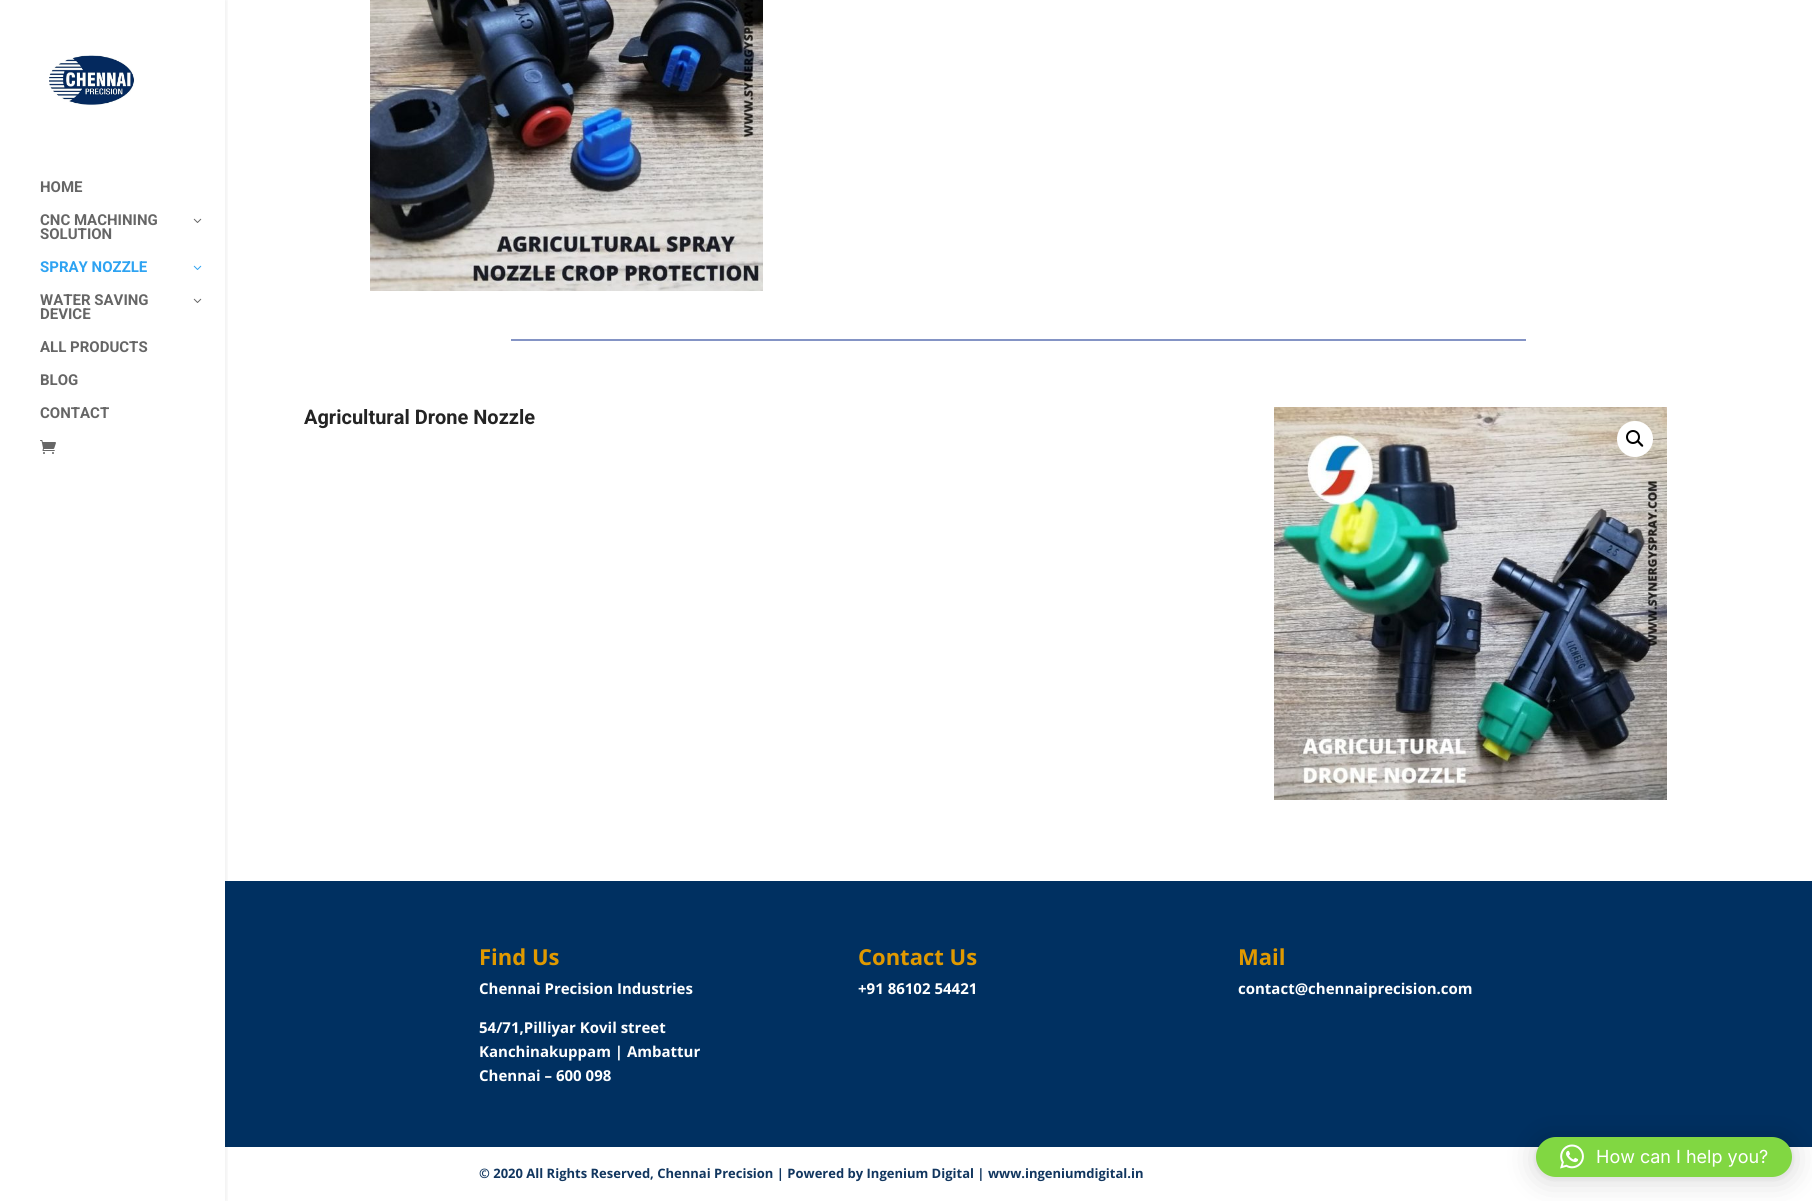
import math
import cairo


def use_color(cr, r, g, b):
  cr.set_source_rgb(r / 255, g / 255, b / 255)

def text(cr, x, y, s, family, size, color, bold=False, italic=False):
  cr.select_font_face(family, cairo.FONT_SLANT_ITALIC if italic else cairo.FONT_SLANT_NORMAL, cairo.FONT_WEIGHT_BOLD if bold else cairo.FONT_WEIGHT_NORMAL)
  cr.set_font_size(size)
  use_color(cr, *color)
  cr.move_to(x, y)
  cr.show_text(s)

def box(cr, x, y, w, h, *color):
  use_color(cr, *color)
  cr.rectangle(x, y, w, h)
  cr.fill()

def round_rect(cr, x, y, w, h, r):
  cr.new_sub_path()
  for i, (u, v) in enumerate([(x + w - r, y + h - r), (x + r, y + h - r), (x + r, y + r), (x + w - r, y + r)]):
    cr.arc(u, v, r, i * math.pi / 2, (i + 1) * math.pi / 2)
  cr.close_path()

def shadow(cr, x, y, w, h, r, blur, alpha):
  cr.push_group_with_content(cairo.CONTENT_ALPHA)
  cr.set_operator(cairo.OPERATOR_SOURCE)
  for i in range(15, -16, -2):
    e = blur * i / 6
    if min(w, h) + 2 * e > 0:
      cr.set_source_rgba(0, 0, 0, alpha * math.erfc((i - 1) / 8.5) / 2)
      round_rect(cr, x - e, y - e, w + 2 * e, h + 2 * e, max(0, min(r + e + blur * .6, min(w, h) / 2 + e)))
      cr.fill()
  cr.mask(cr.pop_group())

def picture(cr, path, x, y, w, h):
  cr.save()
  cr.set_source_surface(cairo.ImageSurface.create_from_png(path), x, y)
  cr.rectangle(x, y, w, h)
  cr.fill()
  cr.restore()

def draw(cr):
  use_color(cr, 255, 255, 255)
  cr.paint()
  box(cr, 225, 881, 1587, 266, 0, 48, 97)
  cr.save()
  cr.rectangle(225, 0, 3, 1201)
  cr.clip()
  use_color(cr, 0, 0, 0)
  shadow(cr, 0, 0, 225, 1201, 0, 3.5, 0.1)
  cr.restore()
  picture(cr, "img_01.png", 49, 55, 86, 51)
  picture(cr, "img_02.png", 193, 218, 9, 5)
  picture(cr, "img_03.png", 193, 265, 9, 5)
  picture(cr, "img_02.png", 193, 298, 9, 5)
  picture(cr, "img_04.png", 40, 440, 16, 14)
  picture(cr, "img_05.png", 370, 0, 393, 291)
  box(cr, 511, 339, 1015, 2, 132, 148, 197)
  picture(cr, "img_06.png", 1274, 407, 393, 393)
  use_color(cr, 255, 255, 255)
  cr.arc(1635, 439, 18, 0, 2 * math.pi)
  cr.fill()
  cr.arc(1633, 437, 6, 0, 2 * math.pi)
  use_color(cr, 0, 0, 0)
  cr.stroke()
  cr.new_path()
  cr.move_to(1637, 440.5)
  cr.curve_to(1638.5, 439.5, 1640, 442, 1641, 443)
  cr.curve_to(1641.5, 443.5, 1644, 445, 1643, 446.5)
  cr.curve_to(1641.5, 447.5, 1640, 445, 1639.5, 444.5)
  cr.curve_to(1639, 443.5, 1636, 442, 1637, 440.5)
  cr.close_path()
  cr.fill()
  use_color(cr, 0, 0, 0)
  shadow(cr, 1536, 1139, 256, 40, 20, 16, 0.16)
  shadow(cr, 1536, 1138, 256, 40, 20, 3, 0.06)
  use_color(cr, 129, 215, 66)
  round_rect(cr, 1536, 1137, 256, 40, 20)
  cr.fill()
  picture(cr, "img_07.png", 1560, 1144, 24, 25)
  text(cr, 40, 192, "HOME", "Roboto", 15, (102, 102, 102), bold=True)
  text(cr, 40, 225, "CNC MACHINING", "Roboto", 15, (102, 102, 102), bold=True)
  text(cr, 40, 239, "SOLUTION", "Roboto", 15, (102, 102, 102), bold=True)
  text(cr, 40, 272, "SPRAY NOZZLE", "Roboto", 15, (46, 163, 242), bold=True)
  text(cr, 40, 305, "WATER SAVING", "Roboto", 15, (102, 102, 102), bold=True)
  text(cr, 40, 319, "DEVICE", "Roboto", 15, (102, 102, 102), bold=True)
  text(cr, 40, 352, "ALL PRODUCTS", "Roboto", 15, (102, 102, 102), bold=True)
  text(cr, 40, 385, "BLOG", "Roboto", 15, (102, 102, 102), bold=True)
  text(cr, 40, 418, "CONTACT", "Roboto", 15, (102, 102, 102), bold=True)
  text(cr, 304, 424, "Agricultural Drone Nozzle", "Roboto", 20, (36, 36, 36), bold=True)
  text(cr, 479, 965, "Find Us", "Open Sans", 22, (224, 153, 0), bold=True)
  text(cr, 479, 994, "Chennai Precision Industries", "Open Sans", 15, (255, 255, 255), bold=True)
  text(cr, 479, 1033, "54/71,Pilliyar Kovil street", "Open Sans", 15, (255, 255, 255), bold=True)
  text(cr, 479, 1057, "Kanchinakuppam | Ambattur", "Open Sans", 15, (255, 255, 255), bold=True)
  text(cr, 479, 1081, "Chennai – 600 098", "Open Sans", 15, (255, 255, 255), bold=True)
  text(cr, 858, 965, "Contact Us", "Open Sans", 22, (224, 153, 0), bold=True)
  text(cr, 858, 994, "+91 86102 54421", "Open Sans", 15, (255, 255, 255), bold=True)
  text(cr, 1238, 965, "Mail", "Open Sans", 22, (224, 153, 0), bold=True)
  text(cr, 1238, 994, "contact@chennaiprecision.com", "Open Sans", 15, (255, 255, 255), bold=True)
  text(cr, 479, 1178, "© 2020 All Rights Reserved, Chennai Precision | Powered by Ingenium Digital | www.ingeniumdigital.in", "Open Sans", 13, (17, 54, 95), bold=True)
  text(cr, 1596, 1163, "How can I help you?", "Inter", 18, (255, 255, 255))


surface = cairo.ImageSurface(cairo.FORMAT_RGB24, 1812, 1201)
cr = cairo.Context(surface)
options = cairo.FontOptions()
options.set_hint_metrics(cairo.HINT_METRICS_OFF)
options.set_hint_style(cairo.HINT_STYLE_NONE)
cr.set_font_options(options)
cr.set_miter_limit(4)
draw(cr)
surface.write_to_png("out.png")
